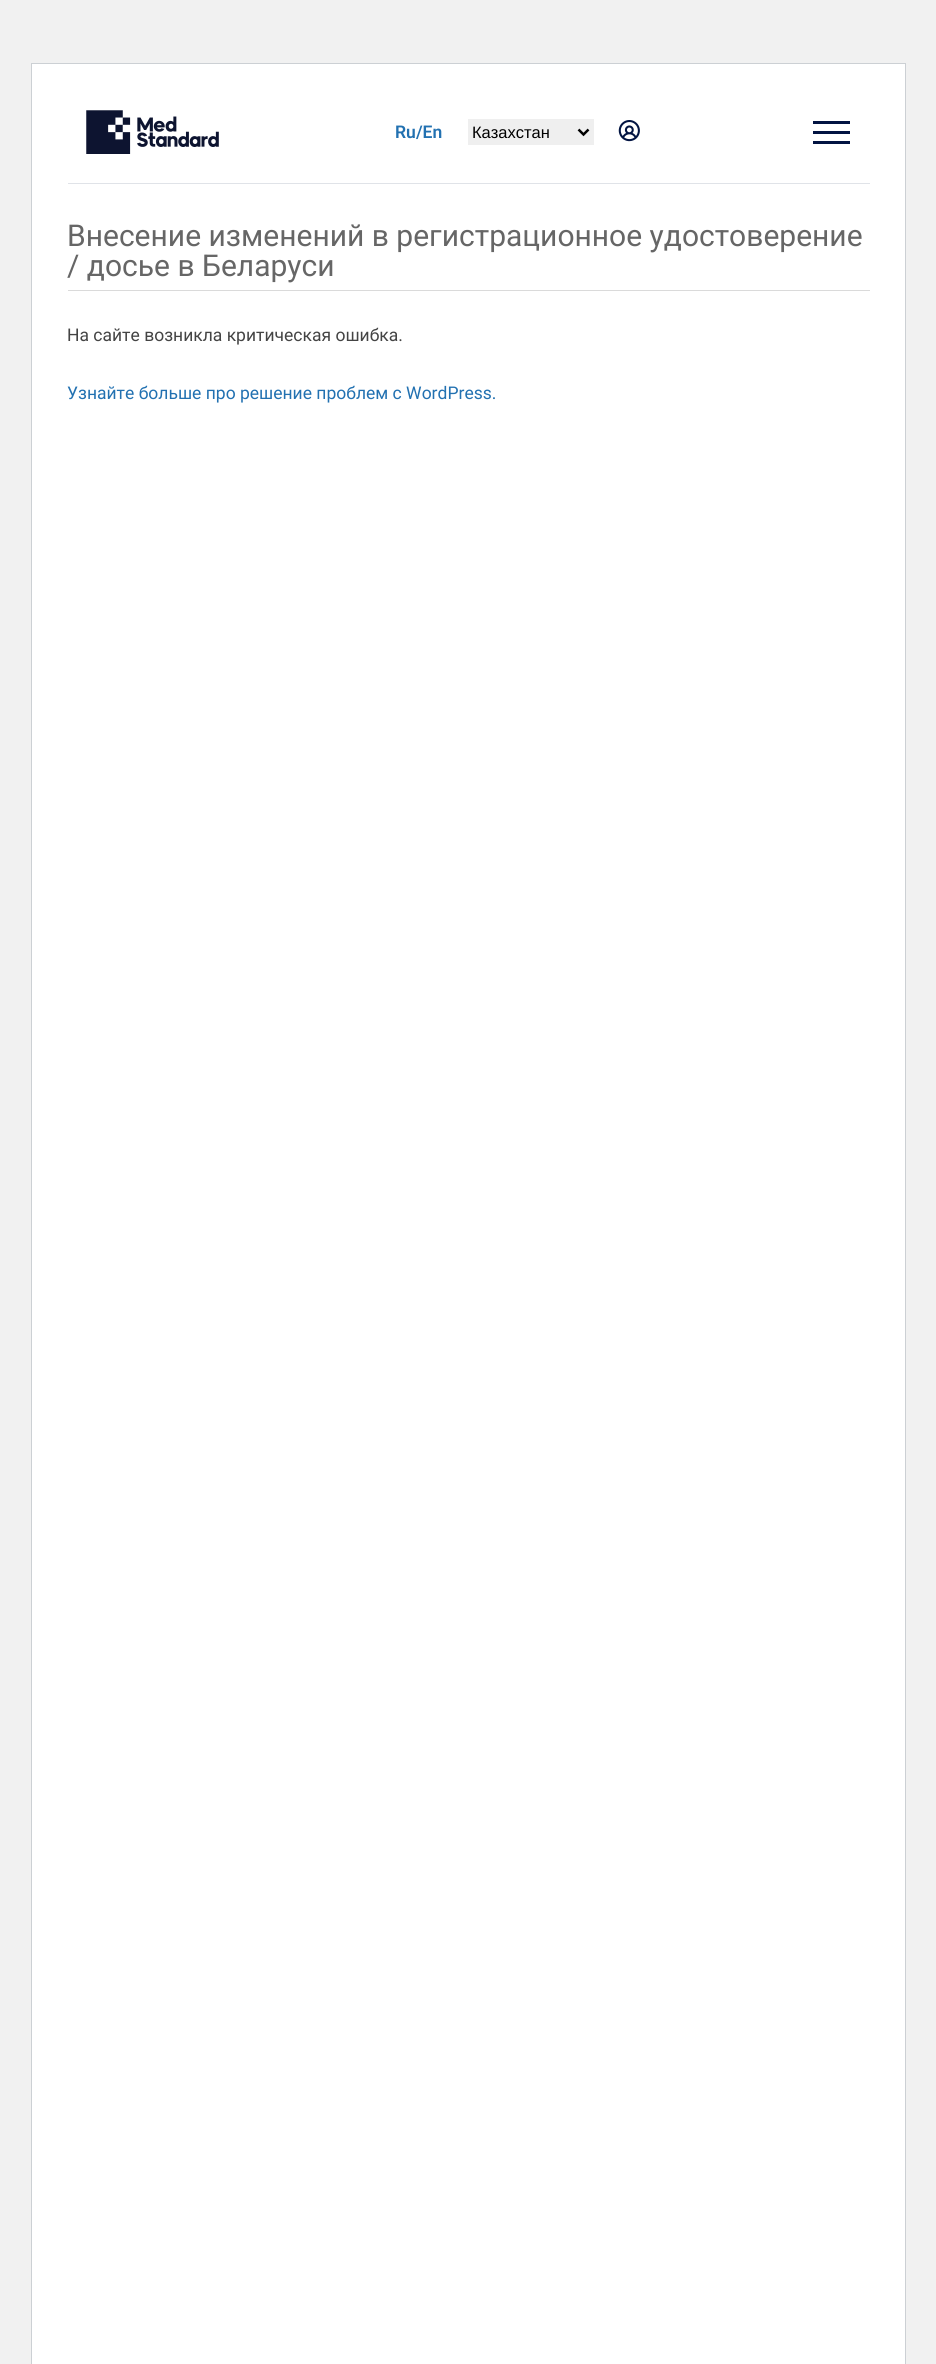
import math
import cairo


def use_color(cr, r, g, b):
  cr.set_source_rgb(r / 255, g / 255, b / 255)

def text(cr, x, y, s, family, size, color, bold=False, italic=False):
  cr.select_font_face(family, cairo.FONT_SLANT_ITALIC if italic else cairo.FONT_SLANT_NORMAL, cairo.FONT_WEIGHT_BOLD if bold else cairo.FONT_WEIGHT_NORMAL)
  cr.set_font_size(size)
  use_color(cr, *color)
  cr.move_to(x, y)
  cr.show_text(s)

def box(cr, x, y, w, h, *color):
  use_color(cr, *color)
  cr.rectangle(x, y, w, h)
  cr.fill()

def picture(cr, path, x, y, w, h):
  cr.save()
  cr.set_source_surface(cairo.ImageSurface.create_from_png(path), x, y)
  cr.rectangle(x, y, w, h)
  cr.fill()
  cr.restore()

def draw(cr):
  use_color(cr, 241, 241, 241)
  cr.paint()
  use_color(cr, 255, 255, 255)
  cr.rectangle(31.5, 63.5, 874, 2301)
  cr.fill_preserve()
  use_color(cr, 204, 208, 212)
  cr.set_line_width(1)
  cr.stroke()
  box(cr, 68, 183, 802, 1, 224, 227, 232)
  picture(cr, "img_01.png", 86, 110, 133, 44)
  box(cr, 468, 119, 126, 26, 239, 239, 239)
  cr.new_path()
  cr.move_to(578.5, 129.5)
  cr.line_to(583.5, 134.5)
  cr.line_to(588.5, 129.5)
  use_color(cr, 0, 0, 0)
  cr.set_line_width(2.5)
  cr.stroke()
  picture(cr, "img_02.png", 618, 120, 22, 22)
  box(cr, 813, 121, 37, 3, 2, 20, 66)
  box(cr, 813, 131, 37, 3, 2, 20, 66)
  box(cr, 813, 141, 37, 3, 2, 20, 66)
  box(cr, 68, 290, 802, 1, 218, 218, 218)
  text(cr, 395, 138, "Ru/En", "Roboto SemiBold", 17.5, (34, 113, 177))
  text(cr, 472, 138, "Казахстан", "Liberation Sans", 16.5, (0, 0, 0))
  text(cr, 67, 246, "Внесение изменений в регистрационное удостоверение", "Roboto", 30, (102, 102, 102))
  text(cr, 67, 276, "/ досье в Беларуси", "Roboto", 30, (102, 102, 102))
  text(cr, 67, 341, "На сайте возникла критическая ошибка.", "Roboto", 17.5, (68, 68, 68))
  text(cr, 67, 399, "Узнайте больше про решение проблем с WordPress.", "Roboto", 17.5, (34, 113, 177))


surface = cairo.ImageSurface(cairo.FORMAT_RGB24, 936, 2364)
cr = cairo.Context(surface)
options = cairo.FontOptions()
options.set_hint_metrics(cairo.HINT_METRICS_OFF)
options.set_hint_style(cairo.HINT_STYLE_NONE)
cr.set_font_options(options)
cr.set_miter_limit(4)
draw(cr)
surface.write_to_png("out.png")
